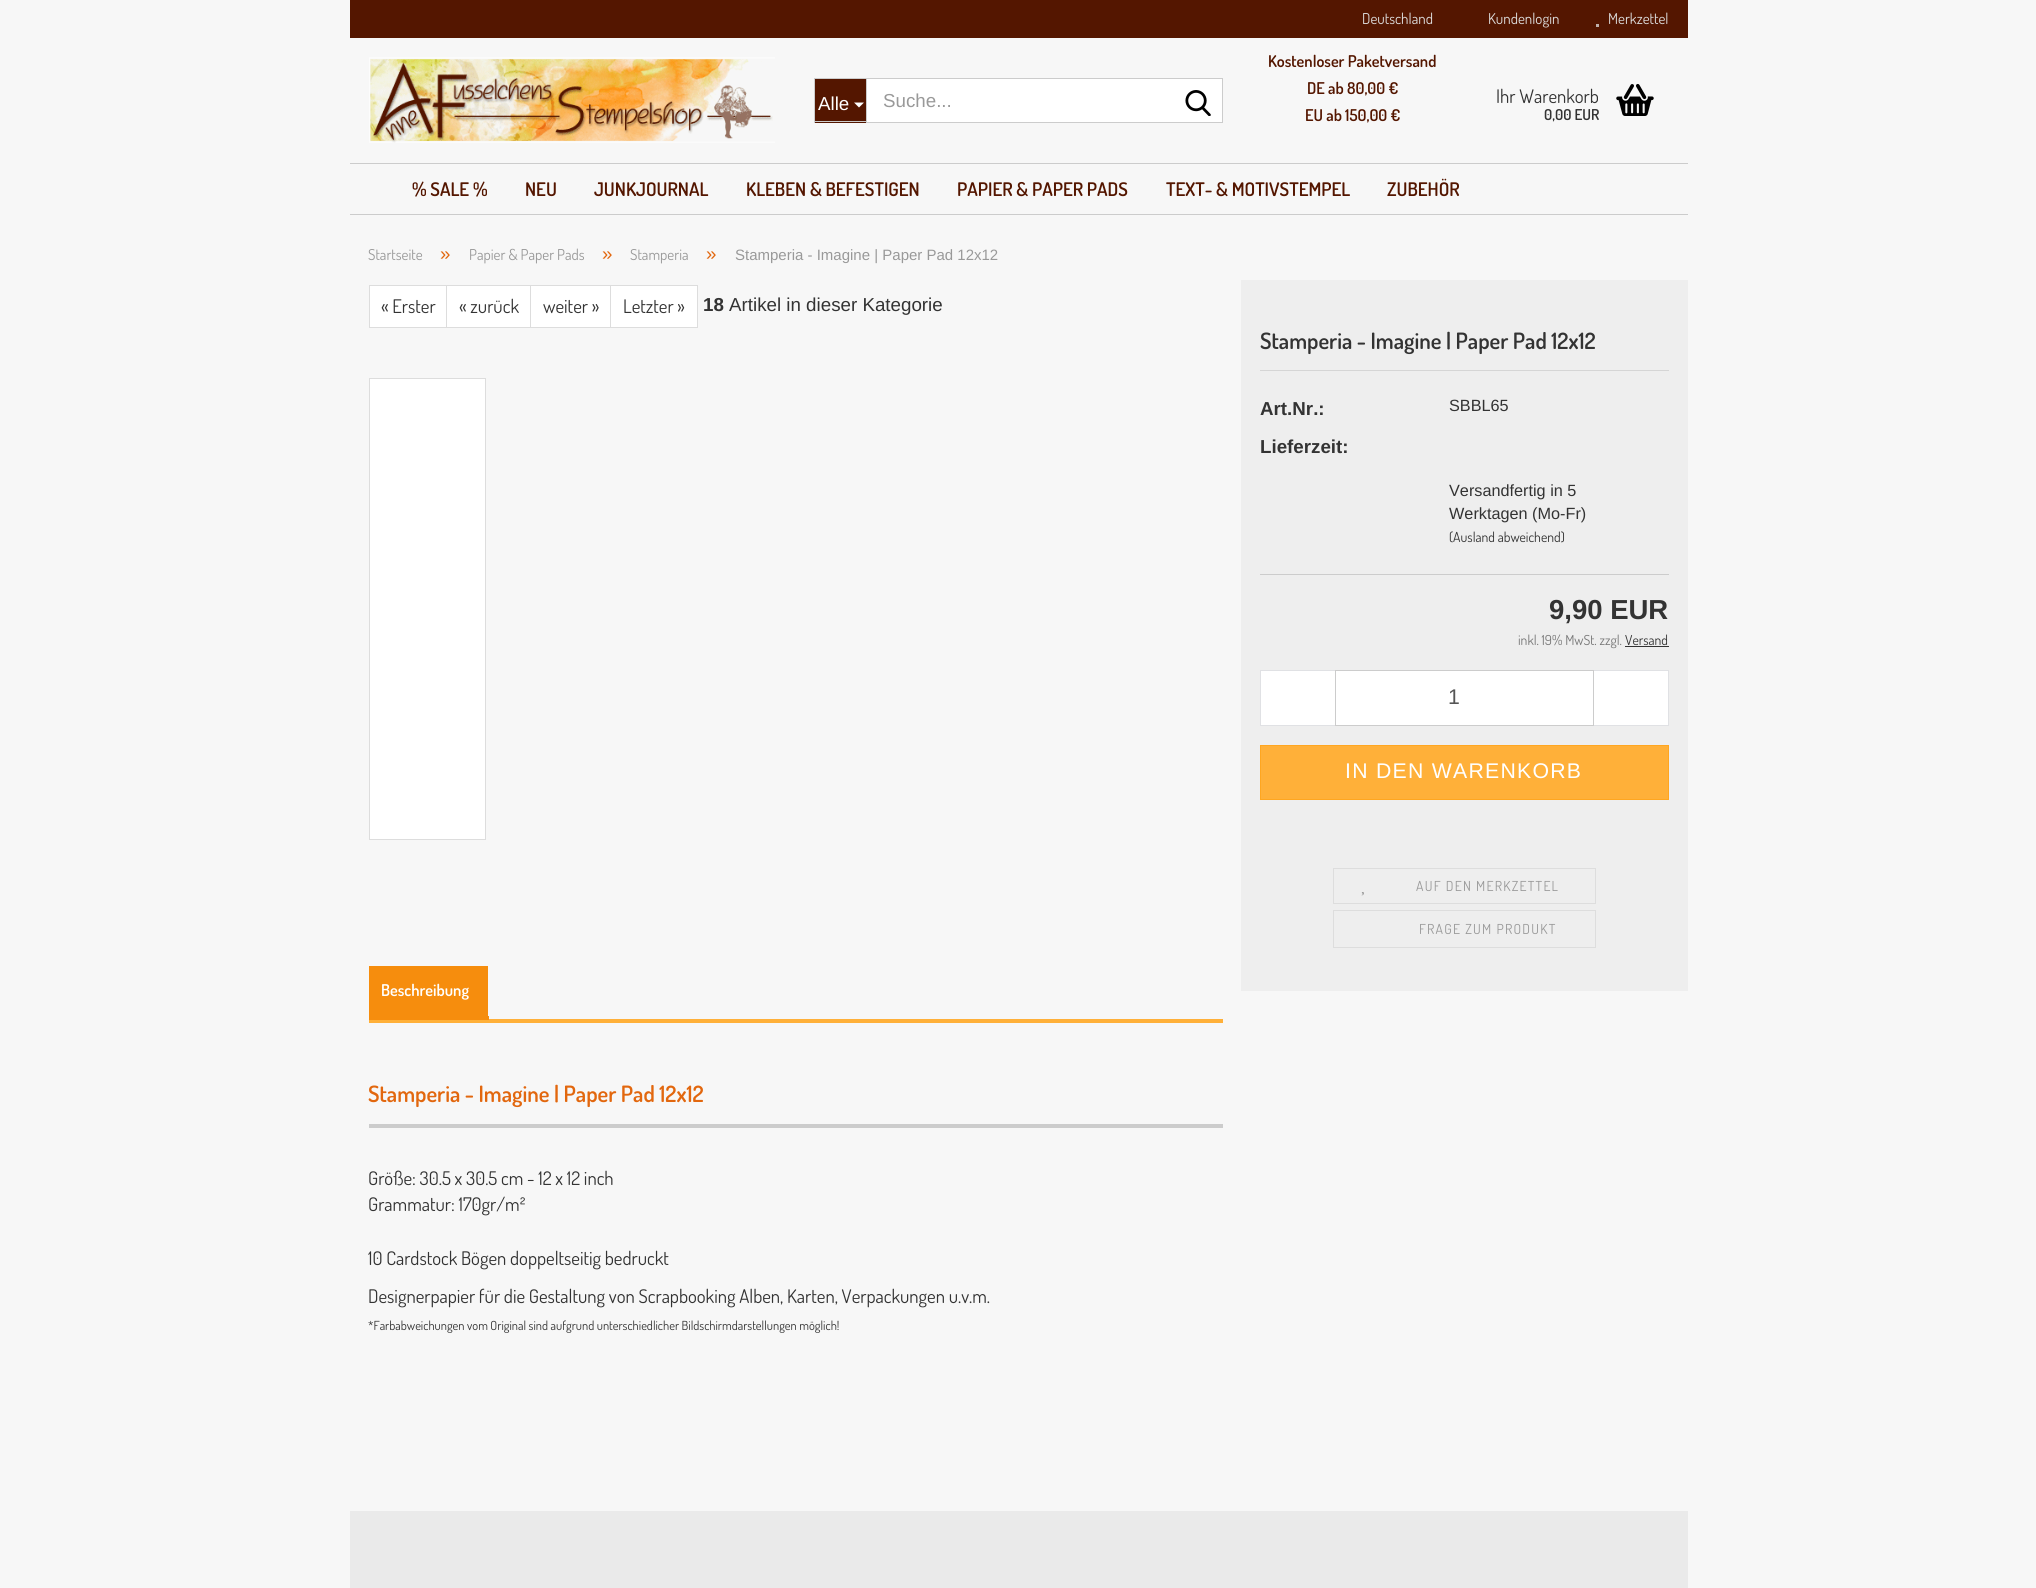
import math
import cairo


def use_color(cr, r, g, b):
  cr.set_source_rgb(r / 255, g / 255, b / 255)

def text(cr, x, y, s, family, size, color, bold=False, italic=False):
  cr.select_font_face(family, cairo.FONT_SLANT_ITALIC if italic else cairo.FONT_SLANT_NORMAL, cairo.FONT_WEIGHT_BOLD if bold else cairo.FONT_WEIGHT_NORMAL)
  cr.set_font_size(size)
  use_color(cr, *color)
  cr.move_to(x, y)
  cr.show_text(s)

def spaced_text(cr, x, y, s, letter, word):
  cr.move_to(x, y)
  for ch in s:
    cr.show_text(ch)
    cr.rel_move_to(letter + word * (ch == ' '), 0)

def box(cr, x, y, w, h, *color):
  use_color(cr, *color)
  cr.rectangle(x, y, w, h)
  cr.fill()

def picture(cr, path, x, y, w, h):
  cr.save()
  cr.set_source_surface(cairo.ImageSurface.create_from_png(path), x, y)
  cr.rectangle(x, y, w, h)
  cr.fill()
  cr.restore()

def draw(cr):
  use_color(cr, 247, 247, 247)
  cr.paint()
  box(cr, 350, 0, 1338, 38, 84, 22, 0)
  box(cr, 1596, 24, 3, 3, 191, 177, 172)
  picture(cr, "img_01.png", 369, 57, 406, 86)
  box(cr, 815, 79, 51, 44, 84, 22, 0)
  box(cr, 814, 78, 52, 1, 204, 204, 204)
  box(cr, 814, 121, 52, 1, 204, 204, 204)
  box(cr, 814, 78, 1, 45, 204, 204, 204)
  use_color(cr, 255, 255, 255)
  cr.new_path()
  cr.move_to(854, 102.5)
  cr.line_to(864, 102.5)
  cr.line_to(859, 107.5)
  cr.close_path()
  cr.fill()
  cr.rectangle(866.5, 78.5, 356, 44)
  cr.fill_preserve()
  use_color(cr, 204, 204, 204)
  cr.set_line_width(1)
  cr.stroke()
  picture(cr, "img_02.png", 1185, 90, 26, 26)
  picture(cr, "img_03.png", 1616, 83, 38, 33)
  box(cr, 350, 163, 1338, 1, 204, 204, 204)
  box(cr, 350, 214, 1338, 1, 204, 204, 204)
  box(cr, 370, 286, 76, 41, 255, 255, 255)
  cr.rectangle(369.5, 285.5, 78, 42)
  use_color(cr, 221, 221, 221)
  cr.stroke()
  use_color(cr, 255, 255, 255)
  cr.rectangle(446.5, 285.5, 84, 42)
  cr.fill_preserve()
  use_color(cr, 221, 221, 221)
  cr.stroke()
  use_color(cr, 255, 255, 255)
  cr.rectangle(530.5, 285.5, 80, 42)
  cr.fill_preserve()
  use_color(cr, 221, 221, 221)
  cr.stroke()
  use_color(cr, 255, 255, 255)
  cr.rectangle(610.5, 285.5, 87, 42)
  cr.fill_preserve()
  use_color(cr, 221, 221, 221)
  cr.stroke()
  use_color(cr, 255, 255, 255)
  cr.rectangle(369.5, 378.5, 116, 461)
  cr.fill_preserve()
  use_color(cr, 221, 221, 221)
  cr.stroke()
  box(cr, 1241, 280, 447, 711, 238, 238, 238)
  box(cr, 1260, 370, 409, 1, 213, 213, 213)
  box(cr, 1260, 574, 409, 1, 204, 204, 204)
  box(cr, 1625, 646, 44, 1, 51, 51, 51)
  box(cr, 1261, 671, 74, 54, 255, 255, 255)
  box(cr, 1260, 670, 75, 1, 224, 225, 228)
  box(cr, 1260, 725, 75, 1, 224, 225, 228)
  box(cr, 1260, 670, 1, 56, 224, 225, 228)
  use_color(cr, 255, 255, 255)
  cr.rectangle(1335.5, 670.5, 258, 55)
  cr.fill_preserve()
  use_color(cr, 204, 204, 204)
  cr.stroke()
  box(cr, 1594, 671, 74, 54, 255, 255, 255)
  box(cr, 1594, 670, 75, 1, 224, 225, 228)
  box(cr, 1668, 670, 1, 56, 224, 225, 228)
  box(cr, 1594, 725, 75, 1, 224, 225, 228)
  use_color(cr, 255, 176, 57)
  cr.rectangle(1260.5, 745.5, 408, 54)
  cr.fill_preserve()
  use_color(cr, 255, 166, 32)
  cr.stroke()
  cr.rectangle(1333.5, 868.5, 262, 35)
  use_color(cr, 221, 221, 221)
  cr.stroke()
  picture(cr, "img_04.png", 1361, 892, 3, 4)
  cr.rectangle(1333.5, 910.5, 262, 37)
  cr.stroke()
  box(cr, 369, 1019, 854, 4, 255, 176, 57)
  box(cr, 369, 1016, 120, 4, 246, 141, 13)
  box(cr, 369, 966, 119, 50, 246, 141, 13)
  box(cr, 369, 1124, 854, 4, 204, 204, 204)
  box(cr, 350, 1511, 1338, 77, 234, 234, 234)
  text(cr, 1362, 24, "Deutschland", "Dosis", 15, (221, 221, 221))
  text(cr, 1488, 24, "Kundenlogin", "Dosis", 15, (221, 221, 221))
  text(cr, 1608, 24, "Merkzettel", "Dosis", 15, (221, 221, 221))
  text(cr, 818, 110, "Alle", "Liberation Sans", 18.75, (255, 255, 255))
  text(cr, 883, 107, "Suche...", "Liberation Sans", 18.75, (153, 153, 153))
  text(cr, 1268, 67, "Kostenloser Paketversand", "Dosis SemiBold", 16.25, (84, 22, 0))
  text(cr, 1307, 94, "DE ab 80,00 €", "Dosis SemiBold", 16.25, (84, 22, 0))
  text(cr, 1305, 121, "EU ab 150,00 €", "Dosis SemiBold", 16.25, (84, 22, 0))
  text(cr, 1496, 103, "Ihr Warenkorb", "Dosis", 18.75, (51, 51, 51))
  text(cr, 1544, 120, "0,00 EUR", "Dosis SemiBold", 15, (51, 51, 51))
  text(cr, 412, 196, "% SALE %", "Dosis SemiBold", 18.75, (84, 22, 0))
  text(cr, 525, 196, "NEU", "Dosis SemiBold", 18.75, (84, 22, 0))
  text(cr, 594, 196, "JUNKJOURNAL", "Dosis SemiBold", 18.75, (84, 22, 0))
  text(cr, 746, 196, "KLEBEN & BEFESTIGEN", "Dosis SemiBold", 18.75, (84, 22, 0))
  text(cr, 957, 196, "PAPIER & PAPER PADS", "Dosis SemiBold", 18.75, (84, 22, 0))
  text(cr, 1166, 196, "TEXT- & MOTIVSTEMPEL", "Dosis SemiBold", 18.75, (84, 22, 0))
  text(cr, 1387, 196, "ZUBEHÖR", "Dosis SemiBold", 18.75, (84, 22, 0))
  text(cr, 368, 260, "Startseite", "Dosis", 15, (153, 153, 153))
  text(cr, 440, 260, "»", "Liberation Sans", 18.75, (226, 103, 14))
  text(cr, 469, 260, "Papier & Paper Pads", "Dosis", 15, (153, 153, 153))
  text(cr, 602, 260, "»", "Liberation Sans", 18.75, (226, 103, 14))
  text(cr, 630, 260, "Stamperia", "Dosis", 15, (153, 153, 153))
  text(cr, 706, 260, "»", "Liberation Sans", 18.75, (226, 103, 14))
  text(cr, 735, 260, "Stamperia - Imagine | Paper Pad 12x12", "Liberation Sans", 15, (153, 153, 153))
  text(cr, 381, 313, "« Erster", "Dosis", 18.75, (51, 51, 51))
  text(cr, 459, 313, "« zurück", "Dosis", 18.75, (51, 51, 51))
  text(cr, 543, 313, "weiter »", "Dosis", 18.75, (51, 51, 51))
  text(cr, 623, 313, "Letzter »", "Dosis", 18.75, (51, 51, 51))
  text(cr, 703, 311, "18", "Liberation Sans", 18.75, (51, 51, 51), bold=True)
  text(cr, 729, 311, "Artikel in dieser Kategorie", "Liberation Sans", 18.75, (51, 51, 51))
  text(cr, 1260, 349, "Stamperia - Imagine | Paper Pad 12x12", "Dosis SemiBold", 22.5, (51, 51, 51))
  text(cr, 1260, 415, "Art.Nr.:", "Liberation Sans", 18.75, (51, 51, 51), bold=True)
  text(cr, 1449, 411, "SBBL65", "Liberation Sans", 16.25, (51, 51, 51))
  text(cr, 1260, 453, "Lieferzeit:", "Liberation Sans", 18.75, (51, 51, 51), bold=True)
  text(cr, 1449, 496, "Versandfertig in 5", "Liberation Sans", 16.25, (51, 51, 51))
  text(cr, 1449, 519, "Werktagen (Mo-Fr)", "Liberation Sans", 16.25, (51, 51, 51))
  text(cr, 1449, 542, "(Ausland abweichend)", "Dosis", 13.75, (51, 51, 51))
  text(cr, 1549, 619, "9,90 EUR", "Liberation Sans", 27.5, (51, 51, 51), bold=True)
  text(cr, 1518, 645, "inkl. 19% MwSt. zzgl.", "Dosis", 13.75, (119, 119, 119))
  text(cr, 1625, 645, "Versand", "Dosis", 13.75, (51, 51, 51))
  text(cr, 1448, 704, "1", "Liberation Sans", 21.25, (85, 85, 85))
  use_color(cr, 255, 255, 255)
  spaced_text(cr, 1345, 778, "IN DEN WARENKORB", 1.25, 0)
  cr.select_font_face("Dosis")
  cr.set_font_size(13.75)
  use_color(cr, 153, 153, 153)
  spaced_text(cr, 1416, 891, "AUF DEN MERKZETTEL", 1.25, 0)
  spaced_text(cr, 1419, 934, "FRAGE ZUM PRODUKT", 1.25, 0)
  text(cr, 381, 996, "Beschreibung", "Dosis SemiBold", 16.25, (255, 255, 255))
  text(cr, 368, 1102, "Stamperia - Imagine | Paper Pad 12x12", "Dosis SemiBold", 22.5, (226, 103, 14))
  text(cr, 368, 1185, "Größe: 30.5 x 30.5 cm - 12 x 12 inch", "Dosis", 18.75, (51, 51, 51))
  text(cr, 368, 1211, "Grammatur: 170gr/m²", "Dosis", 18.75, (51, 51, 51))
  text(cr, 368, 1265, "10 Cardstock Bögen doppeltseitig bedruckt", "Dosis", 18.75, (51, 51, 51))
  text(cr, 368, 1303, "Designerpapier für die Gestaltung von Scrapbooking Alben, Karten, Verpackungen u.v.m.", "Dosis", 18.75, (51, 51, 51))
  text(cr, 368, 1330, "*Farbabweichungen vom Original sind aufgrund unterschiedlicher Bildschirmdarstellungen möglich!", "Dosis", 12.5, (51, 51, 51))


surface = cairo.ImageSurface(cairo.FORMAT_RGB24, 2036, 1588)
cr = cairo.Context(surface)
options = cairo.FontOptions()
options.set_hint_metrics(cairo.HINT_METRICS_OFF)
options.set_hint_style(cairo.HINT_STYLE_NONE)
cr.set_font_options(options)
cr.set_miter_limit(4)
draw(cr)
surface.write_to_png("out.png")
